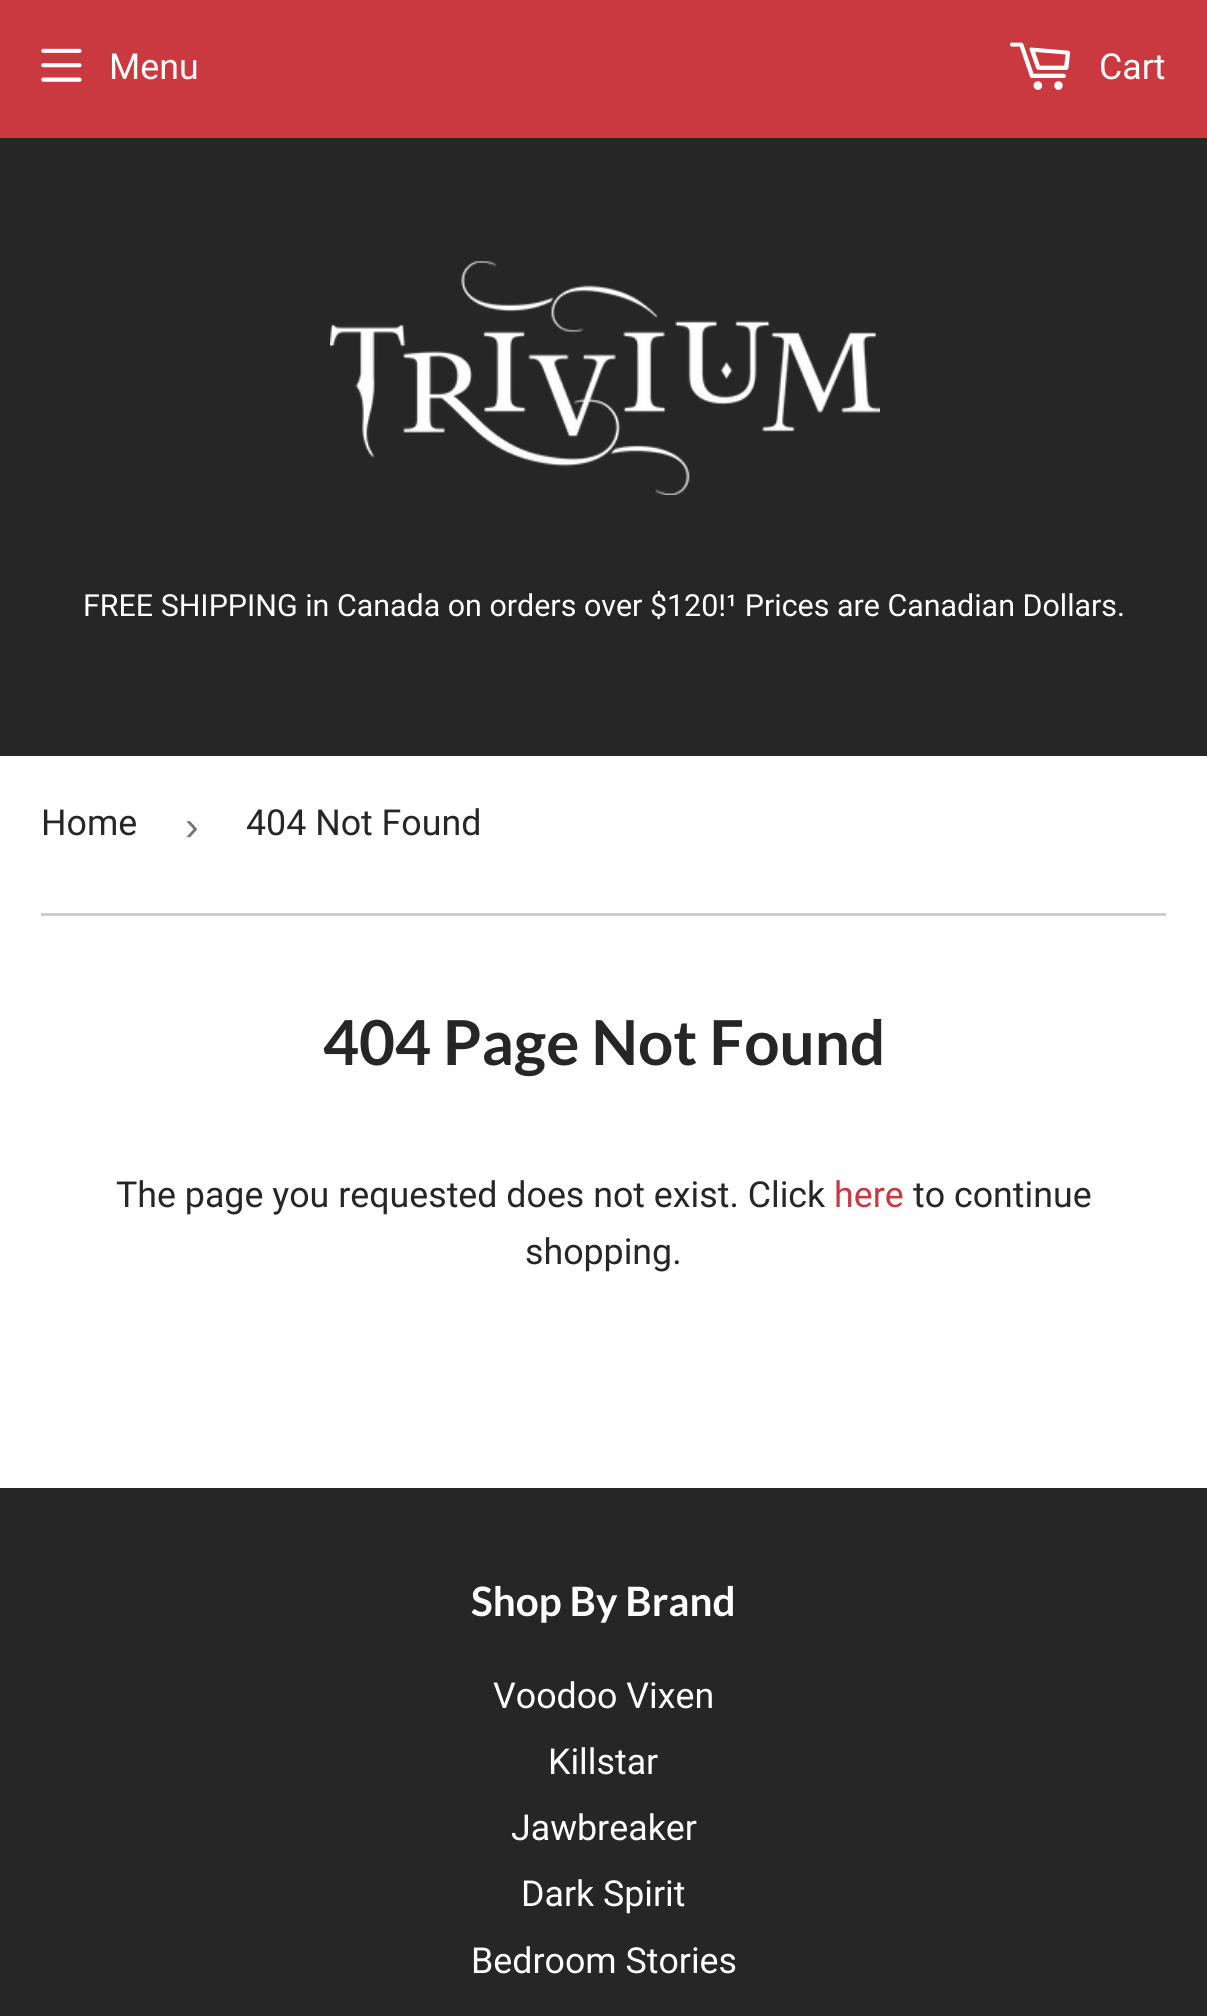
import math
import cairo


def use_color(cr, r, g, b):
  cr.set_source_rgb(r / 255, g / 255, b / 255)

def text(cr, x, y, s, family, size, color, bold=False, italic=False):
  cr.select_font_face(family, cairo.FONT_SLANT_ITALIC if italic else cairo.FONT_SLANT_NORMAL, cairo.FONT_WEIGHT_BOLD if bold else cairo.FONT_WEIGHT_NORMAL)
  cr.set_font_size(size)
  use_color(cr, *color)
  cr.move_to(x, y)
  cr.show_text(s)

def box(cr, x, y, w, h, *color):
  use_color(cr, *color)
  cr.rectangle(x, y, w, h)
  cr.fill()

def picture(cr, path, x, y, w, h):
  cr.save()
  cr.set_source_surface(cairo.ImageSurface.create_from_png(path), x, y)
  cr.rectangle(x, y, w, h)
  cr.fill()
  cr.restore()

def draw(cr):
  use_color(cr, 255, 255, 255)
  cr.paint()
  box(cr, 0, 0, 1207, 138, 202, 57, 64)
  picture(cr, "img_01.png", 41, 48, 41, 34)
  picture(cr, "img_02.png", 1009, 42, 62, 48)
  box(cr, 0, 138, 1207, 618, 38, 38, 38)
  picture(cr, "img_03.png", 330, 261, 550, 234)
  box(cr, 41, 913, 1125, 3, 204, 204, 204)
  box(cr, 0, 1488, 1207, 528, 38, 38, 38)
  text(cr, 109, 79, "Menu", "Roboto", 35.75, (255, 255, 255))
  text(cr, 1099, 79, "Cart", "Roboto", 35.75, (255, 255, 255))
  text(cr, 83, 616, "FREE SHIPPING in Canada on orders over $120!¹ Prices are Canadian Dollars.", "Roboto", 30.4, (255, 255, 255))
  text(cr, 41, 835, "Home", "Roboto", 35.75, (38, 38, 38))
  text(cr, 185, 840, "›", "Liberation Sans", 41, (118, 118, 118))
  text(cr, 246, 835, "404 Not Found", "Roboto", 35.75, (38, 38, 38))
  text(cr, 323, 1065, "404 Page Not Found", "Lato", 62, (38, 38, 38), bold=True)
  text(cr, 116, 1207, "The page you requested does not exist. Click", "Roboto", 35.75, (38, 38, 38))
  text(cr, 834, 1207, "here", "Roboto", 35.75, (202, 57, 64))
  text(cr, 913, 1207, "to continue", "Roboto", 35.75, (38, 38, 38))
  text(cr, 525, 1264, "shopping.", "Roboto", 35.75, (38, 38, 38))
  text(cr, 471, 1616, "Shop By Brand", "Lato", 40.5, (255, 255, 255), bold=True)
  text(cr, 493, 1708, "Voodoo Vixen", "Roboto", 35.75, (255, 255, 255))
  text(cr, 548, 1774, "Killstar", "Roboto", 35.75, (255, 255, 255))
  text(cr, 511, 1840, "Jawbreaker", "Roboto", 35.75, (255, 255, 255))
  text(cr, 521, 1906, "Dark Spirit", "Roboto", 35.75, (255, 255, 255))
  text(cr, 471, 1973, "Bedroom Stories", "Roboto", 35.75, (255, 255, 255))


surface = cairo.ImageSurface(cairo.FORMAT_RGB24, 1207, 2016)
cr = cairo.Context(surface)
options = cairo.FontOptions()
options.set_hint_metrics(cairo.HINT_METRICS_OFF)
options.set_hint_style(cairo.HINT_STYLE_NONE)
cr.set_font_options(options)
cr.set_miter_limit(4)
draw(cr)
surface.write_to_png("out.png")
